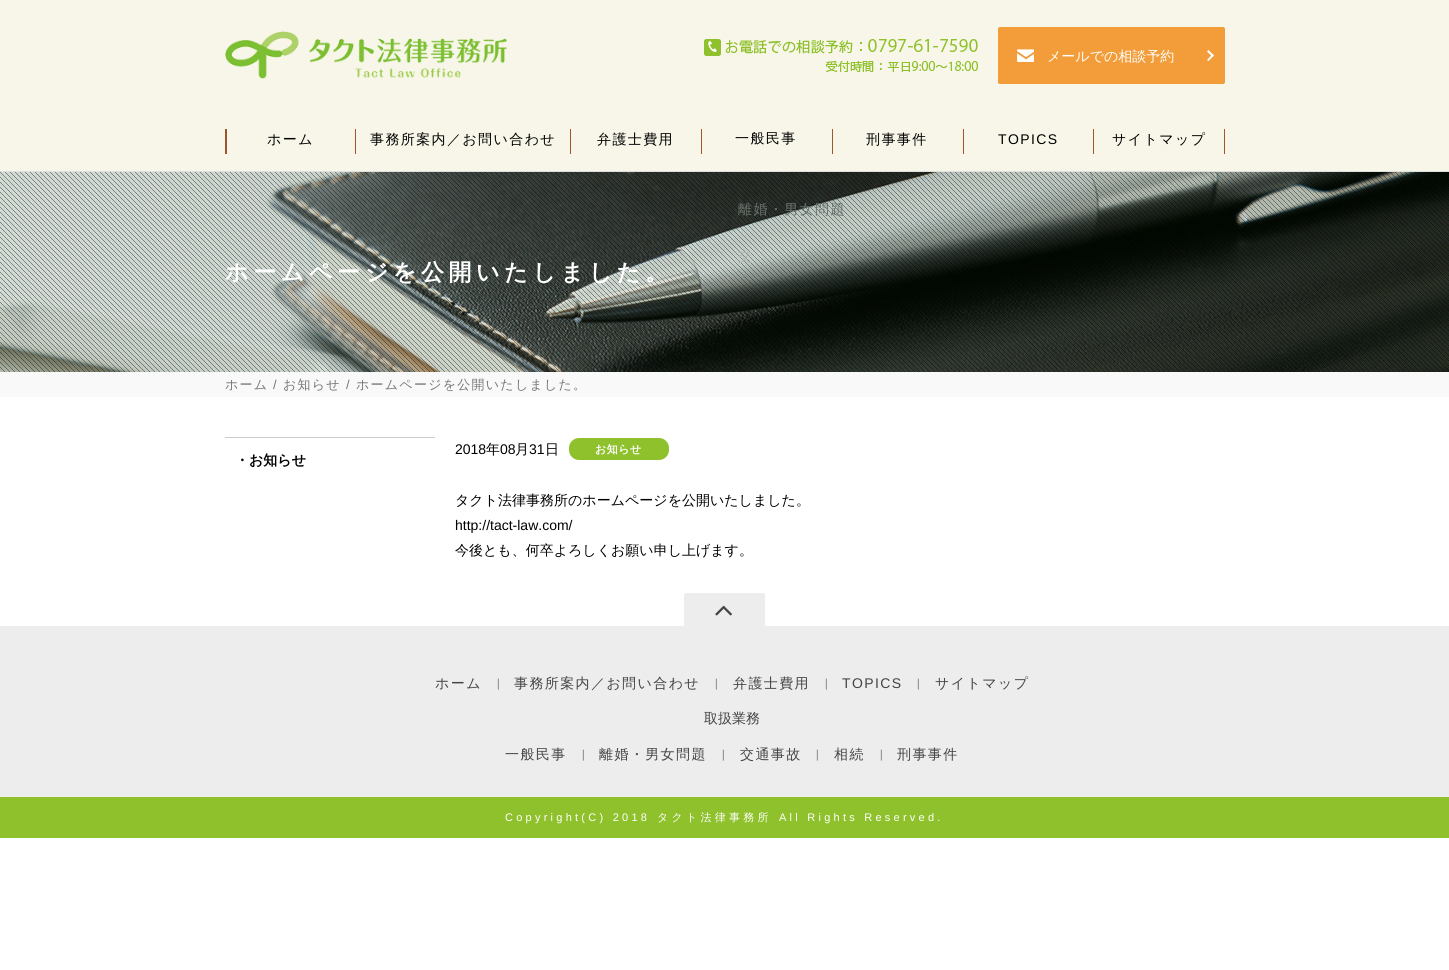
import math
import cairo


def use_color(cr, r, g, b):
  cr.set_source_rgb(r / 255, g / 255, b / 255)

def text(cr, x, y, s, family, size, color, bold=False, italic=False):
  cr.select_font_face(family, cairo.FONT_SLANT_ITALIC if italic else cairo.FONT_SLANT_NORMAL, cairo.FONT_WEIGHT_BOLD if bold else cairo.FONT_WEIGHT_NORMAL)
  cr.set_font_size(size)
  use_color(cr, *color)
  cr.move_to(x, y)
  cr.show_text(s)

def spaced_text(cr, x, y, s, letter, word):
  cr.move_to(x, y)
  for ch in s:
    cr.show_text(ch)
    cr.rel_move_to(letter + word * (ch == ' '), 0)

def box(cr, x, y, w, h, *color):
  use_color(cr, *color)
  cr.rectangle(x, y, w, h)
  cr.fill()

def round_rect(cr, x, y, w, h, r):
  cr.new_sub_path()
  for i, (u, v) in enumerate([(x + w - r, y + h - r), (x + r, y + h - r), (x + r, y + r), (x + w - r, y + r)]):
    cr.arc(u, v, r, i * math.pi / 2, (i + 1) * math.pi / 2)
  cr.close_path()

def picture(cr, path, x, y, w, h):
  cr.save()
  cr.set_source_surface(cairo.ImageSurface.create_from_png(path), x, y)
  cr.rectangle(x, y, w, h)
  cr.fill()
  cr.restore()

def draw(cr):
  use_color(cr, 255, 255, 255)
  cr.paint()
  box(cr, 0, 0, 1449, 171, 247, 246, 232)
  picture(cr, "img_01.png", 225, 31, 283, 48)
  picture(cr, "img_02.png", 704, 39, 274, 33)
  use_color(cr, 242, 157, 57)
  round_rect(cr, 998.5, 27.5, 226, 56, 1.5)
  cr.fill_preserve()
  cr.set_line_width(1)
  cr.stroke()
  picture(cr, "img_03.png", 1017, 49, 17, 13)
  use_color(cr, 255, 255, 255)
  cr.new_path()
  cr.move_to(1208.5, 50)
  cr.line_to(1214, 55.5)
  cr.line_to(1212.5, 57)
  cr.line_to(1207, 51.5)
  cr.close_path()
  cr.fill()
  cr.new_path()
  cr.move_to(1212.5, 54)
  cr.line_to(1214, 55.5)
  cr.line_to(1208.5, 61)
  cr.line_to(1207, 60)
  cr.close_path()
  cr.fill()
  box(cr, 0, 171, 1449, 1, 223, 223, 223)
  box(cr, 1224, 129, 1, 25, 160, 86, 42)
  box(cr, 225, 129, 2, 25, 160, 86, 42)
  box(cr, 355, 129, 1, 25, 160, 86, 42)
  box(cr, 570, 129, 1, 25, 160, 86, 42)
  box(cr, 701, 129, 1, 25, 160, 86, 42)
  box(cr, 832, 129, 1, 25, 160, 86, 42)
  box(cr, 963, 129, 1, 25, 160, 86, 42)
  box(cr, 1093, 129, 1, 25, 160, 86, 42)
  picture(cr, "img_04.png", 0, 172, 1449, 200)
  picture(cr, "img_05.png", 0, 172, 1449, 200)
  box(cr, 0, 372, 1449, 25, 249, 249, 249)
  box(cr, 225, 437, 210, 1, 204, 204, 204)
  use_color(cr, 143, 193, 44)
  round_rect(cr, 569, 438, 100, 22, 10)
  cr.fill()
  use_color(cr, 237, 237, 237)
  cr.new_path()
  cr.move_to(686, 593)
  cr.line_to(763, 593)
  cr.curve_to(764, 593, 765, 594, 765, 595)
  cr.line_to(765, 626)
  cr.line_to(684, 626)
  cr.line_to(684, 595)
  cr.curve_to(684, 594, 685, 593, 686, 593)
  cr.close_path()
  cr.fill()
  picture(cr, "img_06.png", 715, 605, 17, 11)
  box(cr, 0, 626, 1449, 171, 237, 237, 237)
  box(cr, 0, 797, 1449, 41, 143, 193, 44)
  text(cr, 1047, 61, "メールでの相談予約", "WenQuanYi Zen Hei Medium", 14, (255, 255, 255))
  use_color(cr, 0, 0, 0)
  spaced_text(cr, 267, 144, "ホーム", 1.4, 0)
  spaced_text(cr, 370, 144, "事務所案内／お問い合わせ", 1.4, 0)
  spaced_text(cr, 597, 144, "弁護士費用", 1.4, 0)
  spaced_text(cr, 735, 143, "一般民事", 1.4, 0)
  use_color(cr, 104, 112, 107)
  spaced_text(cr, 738, 214, "離婚・男女問題", 1.4, 0)
  use_color(cr, 174, 183, 179)
  spaced_text(cr, 738, 261, "交", 1.4, 0)
  use_color(cr, 0, 0, 0)
  spaced_text(cr, 866, 144, "刑事事件", 1.4, 0)
  cr.select_font_face("Liberation Sans")
  spaced_text(cr, 998, 144, "TOPICS", 1.4, 0)
  cr.select_font_face("WenQuanYi Zen Hei Medium")
  spaced_text(cr, 1112, 144, "サイトマップ", 1.4, 0)
  cr.select_font_face("WenQuanYi Zen Hei", cairo.FONT_SLANT_NORMAL, cairo.FONT_WEIGHT_BOLD)
  cr.set_font_size(23)
  use_color(cr, 255, 255, 255)
  spaced_text(cr, 225, 280, "ホームページを公開いたしました。", 4.6, 0)
  cr.select_font_face("WenQuanYi Zen Hei Medium")
  cr.set_font_size(13)
  use_color(cr, 119, 119, 119)
  spaced_text(cr, 225, 389, "ホーム", 1.25, 0)
  cr.select_font_face("Liberation Sans")
  spaced_text(cr, 273, 389, "/", 1.25, 0)
  cr.select_font_face("WenQuanYi Zen Hei Medium")
  spaced_text(cr, 283, 389, "お知らせ", 1.25, 0)
  cr.select_font_face("Liberation Sans")
  spaced_text(cr, 346, 389, "/", 1.25, 0)
  cr.select_font_face("WenQuanYi Zen Hei Medium")
  spaced_text(cr, 356, 389, "ホームページを公開いたしました。", 1.25, 0)
  text(cr, 235, 465, "・お知らせ", "WenQuanYi Zen Hei", 14, (0, 0, 0), bold=True)
  text(cr, 455, 454, "2018", "Liberation Sans", 14, (0, 0, 0))
  text(cr, 486, 454, "年", "WenQuanYi Zen Hei Medium", 14, (0, 0, 0))
  text(cr, 500, 454, "08", "Liberation Sans", 14, (0, 0, 0))
  text(cr, 515, 454, "月", "WenQuanYi Zen Hei Medium", 14, (0, 0, 0))
  text(cr, 529, 454, "31", "Liberation Sans", 14, (0, 0, 0))
  text(cr, 545, 454, "日", "WenQuanYi Zen Hei Medium", 14, (0, 0, 0))
  cr.select_font_face("WenQuanYi Zen Hei", cairo.FONT_SLANT_NORMAL, cairo.FONT_WEIGHT_BOLD)
  cr.set_font_size(11)
  use_color(cr, 255, 255, 255)
  spaced_text(cr, 595, 453, "お知らせ", 0.5, 0)
  text(cr, 455, 505, "タクト法律事務所のホームページを公開いたしました。", "WenQuanYi Zen Hei Medium", 14, (0, 0, 0))
  text(cr, 455, 530, "http://tact-law.com/", "Liberation Sans", 14, (0, 0, 0))
  text(cr, 455, 555, "今後とも、何卒よろしくお願い申し上げます。", "WenQuanYi Zen Hei Medium", 14, (0, 0, 0))
  use_color(cr, 68, 68, 68)
  spaced_text(cr, 435, 688, "ホーム", 1.4, 0)
  text(cr, 497, 687, "|", "Liberation Serif", 12, (68, 68, 68))
  cr.select_font_face("WenQuanYi Zen Hei Medium")
  cr.set_font_size(14)
  spaced_text(cr, 514, 688, "事務所案内／お問い合わせ", 1.4, 0)
  text(cr, 715, 687, "|", "Liberation Serif", 12, (68, 68, 68))
  cr.select_font_face("WenQuanYi Zen Hei Medium")
  cr.set_font_size(14)
  spaced_text(cr, 733, 688, "弁護士費用", 1.4, 0)
  text(cr, 825, 687, "|", "Liberation Serif", 12, (68, 68, 68))
  cr.select_font_face("Liberation Sans")
  cr.set_font_size(14)
  spaced_text(cr, 842, 688, "TOPICS", 1.4, 0)
  text(cr, 917, 687, "|", "Liberation Serif", 12, (68, 68, 68))
  cr.select_font_face("WenQuanYi Zen Hei Medium")
  cr.set_font_size(14)
  spaced_text(cr, 935, 688, "サイトマップ", 1.4, 0)
  text(cr, 704, 723, "取扱業務", "WenQuanYi Zen Hei Medium", 14, (68, 68, 68))
  spaced_text(cr, 505, 759, "一般民事", 1.4, 0)
  text(cr, 582, 758, "|", "Liberation Serif", 12, (68, 68, 68))
  cr.select_font_face("WenQuanYi Zen Hei Medium")
  cr.set_font_size(14)
  spaced_text(cr, 599, 759, "離婚・男女問題", 1.4, 0)
  text(cr, 722, 758, "|", "Liberation Serif", 12, (68, 68, 68))
  cr.select_font_face("WenQuanYi Zen Hei Medium")
  cr.set_font_size(14)
  spaced_text(cr, 740, 759, "交通事故", 1.4, 0)
  text(cr, 816, 758, "|", "Liberation Serif", 12, (68, 68, 68))
  cr.select_font_face("WenQuanYi Zen Hei Medium")
  cr.set_font_size(14)
  spaced_text(cr, 834, 759, "相続", 1.4, 0)
  text(cr, 880, 758, "|", "Liberation Serif", 12, (68, 68, 68))
  cr.select_font_face("WenQuanYi Zen Hei Medium")
  cr.set_font_size(14)
  spaced_text(cr, 897, 759, "刑事事件", 1.4, 0)
  cr.select_font_face("Liberation Sans")
  cr.set_font_size(11)
  use_color(cr, 255, 255, 255)
  spaced_text(cr, 505, 821, "Copyright(C) 2018", 3.25, 0)
  cr.select_font_face("WenQuanYi Zen Hei Medium")
  spaced_text(cr, 657, 821, "タクト法律事務所", 3.25, 0)
  cr.select_font_face("Liberation Sans")
  spaced_text(cr, 779, 821, "All Rights Reserved.", 3.25, 0)


surface = cairo.ImageSurface(cairo.FORMAT_RGB24, 1449, 970)
cr = cairo.Context(surface)
options = cairo.FontOptions()
options.set_hint_metrics(cairo.HINT_METRICS_OFF)
options.set_hint_style(cairo.HINT_STYLE_NONE)
cr.set_font_options(options)
cr.set_miter_limit(4)
draw(cr)
surface.write_to_png("out.png")
